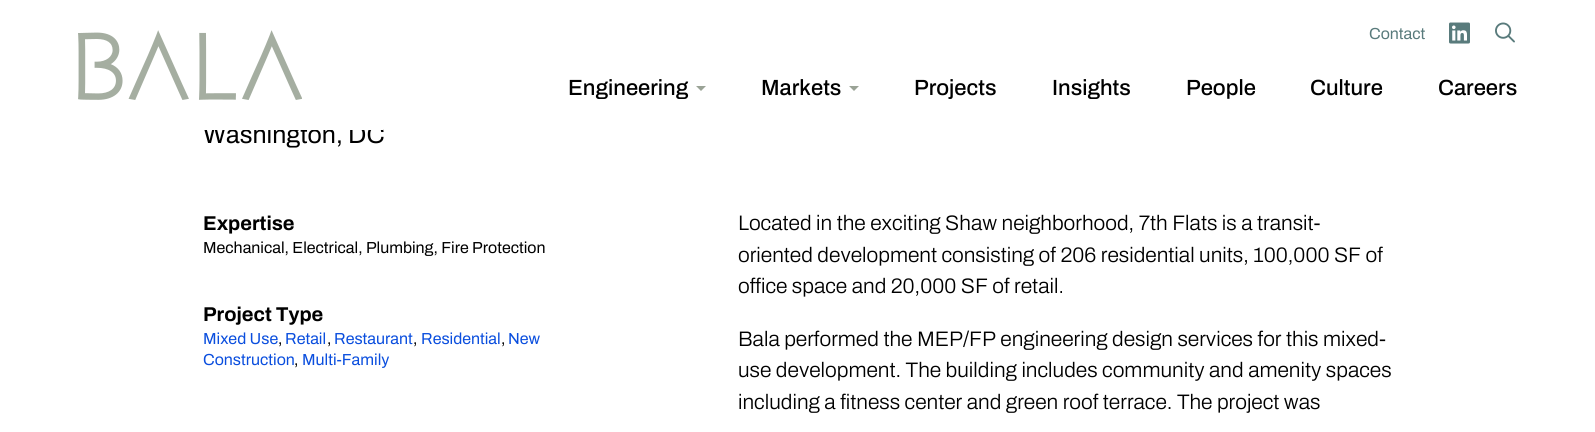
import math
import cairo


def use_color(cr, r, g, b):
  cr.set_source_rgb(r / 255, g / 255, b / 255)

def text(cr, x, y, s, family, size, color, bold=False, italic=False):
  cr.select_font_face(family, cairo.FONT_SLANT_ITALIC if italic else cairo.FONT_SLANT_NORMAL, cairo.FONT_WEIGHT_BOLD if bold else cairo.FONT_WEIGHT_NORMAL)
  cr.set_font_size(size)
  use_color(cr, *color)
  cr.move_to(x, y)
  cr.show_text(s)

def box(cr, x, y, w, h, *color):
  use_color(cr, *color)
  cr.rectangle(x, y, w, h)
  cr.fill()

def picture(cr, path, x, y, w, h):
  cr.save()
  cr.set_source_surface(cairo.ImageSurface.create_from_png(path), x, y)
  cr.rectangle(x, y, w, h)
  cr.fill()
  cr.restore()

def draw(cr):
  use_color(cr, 255, 255, 255)
  cr.paint()
  picture(cr, "img_01.png", 78, 30, 224, 70)
  picture(cr, "img_02.png", 1449, 22, 21, 22)
  picture(cr, "img_03.png", 1495, 22, 20, 21)
  use_color(cr, 154, 163, 150)
  cr.new_path()
  cr.move_to(696, 86)
  cr.line_to(706, 86)
  cr.line_to(701, 91)
  cr.close_path()
  cr.fill()
  cr.new_path()
  cr.move_to(849, 86)
  cr.line_to(859, 86)
  cr.line_to(854, 91)
  cr.close_path()
  cr.fill()
  text(cr, 1369, 39, "Contact", "Archivo SemiBold", 16, (89, 123, 124))
  text(cr, 568, 95, "Engineering", "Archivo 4 SemiBold", 22, (0, 0, 0))
  text(cr, 761, 95, "Markets", "Archivo 4 SemiBold", 22, (0, 0, 0))
  text(cr, 914, 95, "Projects", "Archivo 4 SemiBold", 22, (0, 0, 0))
  text(cr, 1052, 95, "Insights", "Archivo 4 SemiBold", 22, (0, 0, 0))
  text(cr, 1186, 95, "People", "Archivo 4 SemiBold", 22, (0, 0, 0))
  text(cr, 1310, 95, "Culture", "Archivo 4 SemiBold", 22, (0, 0, 0))
  text(cr, 1438, 95, "Careers", "Archivo 4 SemiBold", 22, (0, 0, 0))
  text(cr, 203, 143, "Washington, DC", "Archivo SemiBold", 25, (0, 0, 0))
  box(cr, 202, 124, 181, 6, 255, 255, 255)
  text(cr, 203, 230, "Expertise", "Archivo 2 SemiBold", 20, (0, 0, 0))
  text(cr, 203, 253, "Mechanical, Electrical, Plumbing, Fire Protection", "Archivo SemiBold", 16, (0, 0, 0))
  text(cr, 203, 321, "Project Type", "Archivo 2 SemiBold", 20, (0, 0, 0))
  text(cr, 203, 344, "Mixed Use", "Archivo SemiBold", 16, (10, 78, 222))
  text(cr, 278, 344, ",", "Archivo SemiBold", 16, (0, 0, 0))
  text(cr, 285, 344, "Retail", "Archivo SemiBold", 16, (10, 78, 222))
  text(cr, 327, 344, ",", "Archivo SemiBold", 16, (0, 0, 0))
  text(cr, 334, 344, "Restaurant", "Archivo SemiBold", 16, (10, 78, 222))
  text(cr, 413, 344, ",", "Archivo SemiBold", 16, (0, 0, 0))
  text(cr, 421, 344, "Residential", "Archivo SemiBold", 16, (10, 78, 222))
  text(cr, 501, 344, ",", "Archivo SemiBold", 16, (0, 0, 0))
  text(cr, 508, 344, "New", "Archivo SemiBold", 16, (10, 78, 222))
  text(cr, 203, 365, "Construction", "Archivo SemiBold", 16, (10, 78, 222))
  text(cr, 294, 365, ",", "Archivo SemiBold", 16, (0, 0, 0))
  text(cr, 302, 365, "Multi-Family", "Archivo SemiBold", 16, (10, 78, 222))
  text(cr, 738, 230, "Located in the exciting Shaw neighborhood, 7th Flats is a transit-", "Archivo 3 SemiBold", 21, (0, 0, 0))
  text(cr, 738, 262, "oriented development consisting of 206 residential units, 100,000 SF of", "Archivo 3 SemiBold", 21, (0, 0, 0))
  text(cr, 738, 293, "office space and 20,000 SF of retail.", "Archivo 3 SemiBold", 21, (0, 0, 0))
  text(cr, 738, 346, "Bala performed the MEP/FP engineering design services for this mixed-", "Archivo 3 SemiBold", 21, (0, 0, 0))
  text(cr, 738, 377, "use development. The building includes community and amenity spaces", "Archivo 3 SemiBold", 21, (0, 0, 0))
  text(cr, 738, 409, "including a fitness center and green roof terrace. The project was", "Archivo 3 SemiBold", 21, (0, 0, 0))


surface = cairo.ImageSurface(cairo.FORMAT_RGB24, 1595, 432)
cr = cairo.Context(surface)
options = cairo.FontOptions()
options.set_hint_metrics(cairo.HINT_METRICS_OFF)
options.set_hint_style(cairo.HINT_STYLE_NONE)
cr.set_font_options(options)
cr.set_miter_limit(4)
draw(cr)
surface.write_to_png("out.png")
